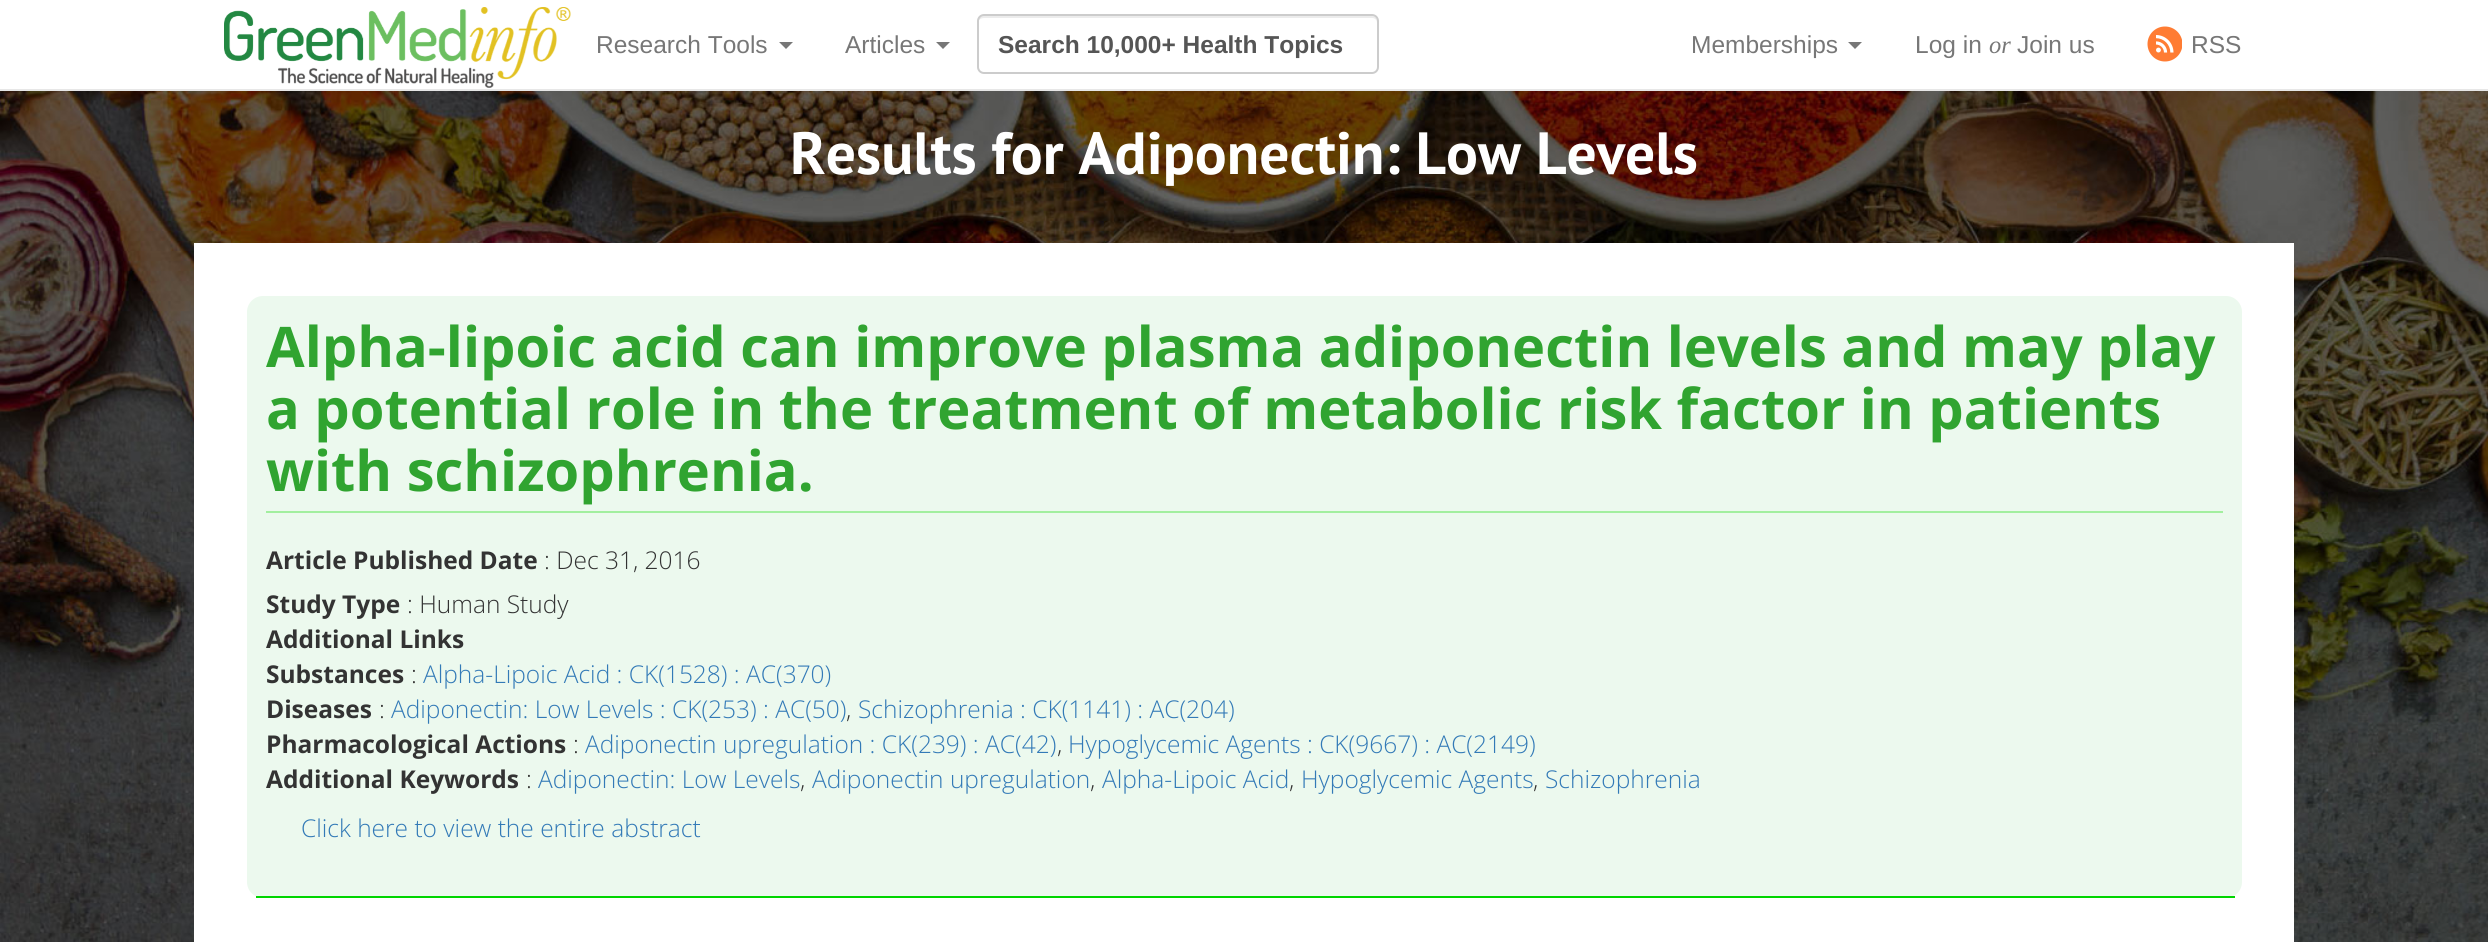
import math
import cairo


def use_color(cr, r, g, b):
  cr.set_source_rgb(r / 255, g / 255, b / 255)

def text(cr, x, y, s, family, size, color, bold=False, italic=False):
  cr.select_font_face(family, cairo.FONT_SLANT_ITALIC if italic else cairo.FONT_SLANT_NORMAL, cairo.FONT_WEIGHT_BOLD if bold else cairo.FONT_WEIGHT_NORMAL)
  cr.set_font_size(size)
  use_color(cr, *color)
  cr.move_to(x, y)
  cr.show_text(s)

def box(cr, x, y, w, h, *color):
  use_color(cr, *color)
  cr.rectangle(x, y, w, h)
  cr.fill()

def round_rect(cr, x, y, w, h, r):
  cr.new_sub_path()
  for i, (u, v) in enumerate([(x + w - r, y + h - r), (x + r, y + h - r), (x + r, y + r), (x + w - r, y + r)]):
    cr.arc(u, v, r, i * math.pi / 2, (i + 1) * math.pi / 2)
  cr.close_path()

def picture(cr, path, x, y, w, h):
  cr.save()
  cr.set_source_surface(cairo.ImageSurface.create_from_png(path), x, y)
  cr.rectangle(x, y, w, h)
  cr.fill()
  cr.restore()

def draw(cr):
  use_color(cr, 255, 255, 255)
  cr.paint()
  box(cr, 0, 89, 2488, 2, 231, 231, 231)
  picture(cr, "img_01.png", 224, 7, 347, 81)
  use_color(cr, 119, 119, 119)
  cr.new_path()
  cr.move_to(779, 42)
  cr.line_to(793, 42)
  cr.line_to(786, 49)
  cr.close_path()
  cr.fill()
  cr.new_path()
  cr.move_to(936, 42)
  cr.line_to(950, 42)
  cr.line_to(943, 49)
  cr.close_path()
  cr.fill()
  use_color(cr, 236, 236, 236)
  cr.new_path()
  cr.move_to(984, 18)
  cr.line_to(1372, 18)
  cr.curve_to(1375, 18, 1377, 20, 1377, 23)
  cr.line_to(1377, 21)
  cr.curve_to(1377, 18, 1375, 16, 1372, 16)
  cr.line_to(983, 16)
  cr.curve_to(980, 16, 978, 18, 978, 21)
  cr.line_to(978, 23)
  cr.curve_to(978, 20, 981, 18, 984, 18)
  cr.close_path()
  cr.fill()
  round_rect(cr, 978, 15, 400, 58, 6)
  use_color(cr, 204, 204, 204)
  cr.stroke()
  use_color(cr, 119, 119, 119)
  cr.new_path()
  cr.move_to(1848, 42)
  cr.line_to(1862, 42)
  cr.line_to(1855, 49)
  cr.close_path()
  cr.fill()
  picture(cr, "img_02.png", 2147, 26, 35, 36)
  picture(cr, "img_03.png", 0, 91, 2488, 851)
  box(cr, 194, 243, 2100, 699, 255, 255, 255)
  use_color(cr, 236, 249, 238)
  round_rect(cr, 247, 296, 1995, 602, 16)
  cr.fill()
  box(cr, 256, 896, 1979, 2, 0, 213, 0)
  box(cr, 266, 511, 1957, 2, 162, 239, 159)
  text(cr, 596, 53, "Research Tools", "Liberation Sans", 24.5, (119, 119, 119))
  text(cr, 845, 53, "Articles", "Liberation Sans", 24.5, (119, 119, 119))
  text(cr, 998, 53, "Search 10,000+ Health Topics", "Liberation Sans", 24.5, (85, 85, 85), bold=True)
  text(cr, 1691, 53, "Memberships", "Liberation Sans", 24.5, (119, 119, 119))
  text(cr, 1915, 53, "Log in", "Liberation Sans", 24.5, (119, 119, 119))
  text(cr, 1989, 53, "or", "Liberation Serif", 24.5, (119, 119, 119), italic=True)
  text(cr, 2017, 53, "Join us", "Liberation Sans", 24.5, (119, 119, 119))
  text(cr, 2191, 53, "RSS", "Liberation Sans", 24.5, (119, 119, 119))
  text(cr, 790, 174, "Results for Adiponectin: Low Levels", "PT Sans", 59.5, (255, 255, 255), bold=True)
  text(cr, 266, 367, "Alpha-lipoic acid can improve plasma adiponectin levels and may play", "Open Sans", 56, (48, 164, 48), bold=True)
  text(cr, 266, 429, "a potential role in the treatment of metabolic risk factor in patients", "Open Sans", 56, (48, 164, 48), bold=True)
  text(cr, 266, 491, "with schizophrenia.", "Open Sans", 56, (48, 164, 48), bold=True)
  text(cr, 266, 569, "Article Published Date", "Open Sans", 24.5, (51, 51, 51), bold=True)
  text(cr, 544, 569, ": Dec 31, 2016", "Open Sans Light", 24.5, (51, 51, 51))
  text(cr, 266, 613, "Study Type", "Open Sans", 24.5, (51, 51, 51), bold=True)
  text(cr, 407, 613, ": Human Study", "Open Sans Light", 24.5, (51, 51, 51))
  text(cr, 266, 648, "Additional Links", "Open Sans", 24.5, (51, 51, 51), bold=True)
  text(cr, 266, 683, "Substances", "Open Sans", 24.5, (51, 51, 51), bold=True)
  text(cr, 411, 683, ":", "Open Sans Light", 24.5, (51, 51, 51))
  text(cr, 423, 683, "Alpha-Lipoic Acid : CK(1528) : AC(370)", "Open Sans Light", 24.5, (51, 122, 183))
  text(cr, 266, 718, "Diseases", "Open Sans", 24.5, (51, 51, 51), bold=True)
  text(cr, 379, 718, ":", "Open Sans Light", 24.5, (51, 51, 51))
  text(cr, 391, 718, "Adiponectin: Low Levels : CK(253) : AC(50)", "Open Sans Light", 24.5, (51, 122, 183))
  text(cr, 846, 718, ",", "Open Sans Light", 24.5, (51, 51, 51))
  text(cr, 858, 718, "Schizophrenia : CK(1141) : AC(204)", "Open Sans Light", 24.5, (51, 122, 183))
  text(cr, 266, 753, "Pharmacological Actions", "Open Sans", 24.5, (51, 51, 51), bold=True)
  text(cr, 573, 753, ":", "Open Sans Light", 24.5, (51, 51, 51))
  text(cr, 585, 753, "Adiponectin upregulation : CK(239) : AC(42)", "Open Sans Light", 24.5, (51, 122, 183))
  text(cr, 1057, 753, ",", "Open Sans Light", 24.5, (51, 51, 51))
  text(cr, 1068, 753, "Hypoglycemic Agents : CK(9667) : AC(2149)", "Open Sans Light", 24.5, (51, 122, 183))
  text(cr, 266, 788, "Additional Keywords", "Open Sans", 24.5, (51, 51, 51), bold=True)
  text(cr, 526, 788, ":", "Open Sans Light", 24.5, (51, 51, 51))
  text(cr, 538, 788, "Adiponectin: Low Levels", "Open Sans Light", 24.5, (51, 122, 183))
  text(cr, 800, 788, ",", "Open Sans Light", 24.5, (51, 51, 51))
  text(cr, 812, 788, "Adiponectin upregulation", "Open Sans Light", 24.5, (51, 122, 183))
  text(cr, 1090, 788, ",", "Open Sans Light", 24.5, (51, 51, 51))
  text(cr, 1102, 788, "Alpha-Lipoic Acid", "Open Sans Light", 24.5, (51, 122, 183))
  text(cr, 1289, 788, ",", "Open Sans Light", 24.5, (51, 51, 51))
  text(cr, 1301, 788, "Hypoglycemic Agents", "Open Sans Light", 24.5, (51, 122, 183))
  text(cr, 1533, 788, ",", "Open Sans Light", 24.5, (51, 51, 51))
  text(cr, 1545, 788, "Schizophrenia", "Open Sans Light", 24.5, (51, 122, 183))
  text(cr, 301, 837, "Click here to view the entire abstract", "Open Sans Light", 24.5, (51, 122, 183))


surface = cairo.ImageSurface(cairo.FORMAT_RGB24, 2488, 942)
cr = cairo.Context(surface)
options = cairo.FontOptions()
options.set_hint_metrics(cairo.HINT_METRICS_OFF)
options.set_hint_style(cairo.HINT_STYLE_NONE)
cr.set_font_options(options)
cr.set_miter_limit(4)
draw(cr)
surface.write_to_png("out.png")
